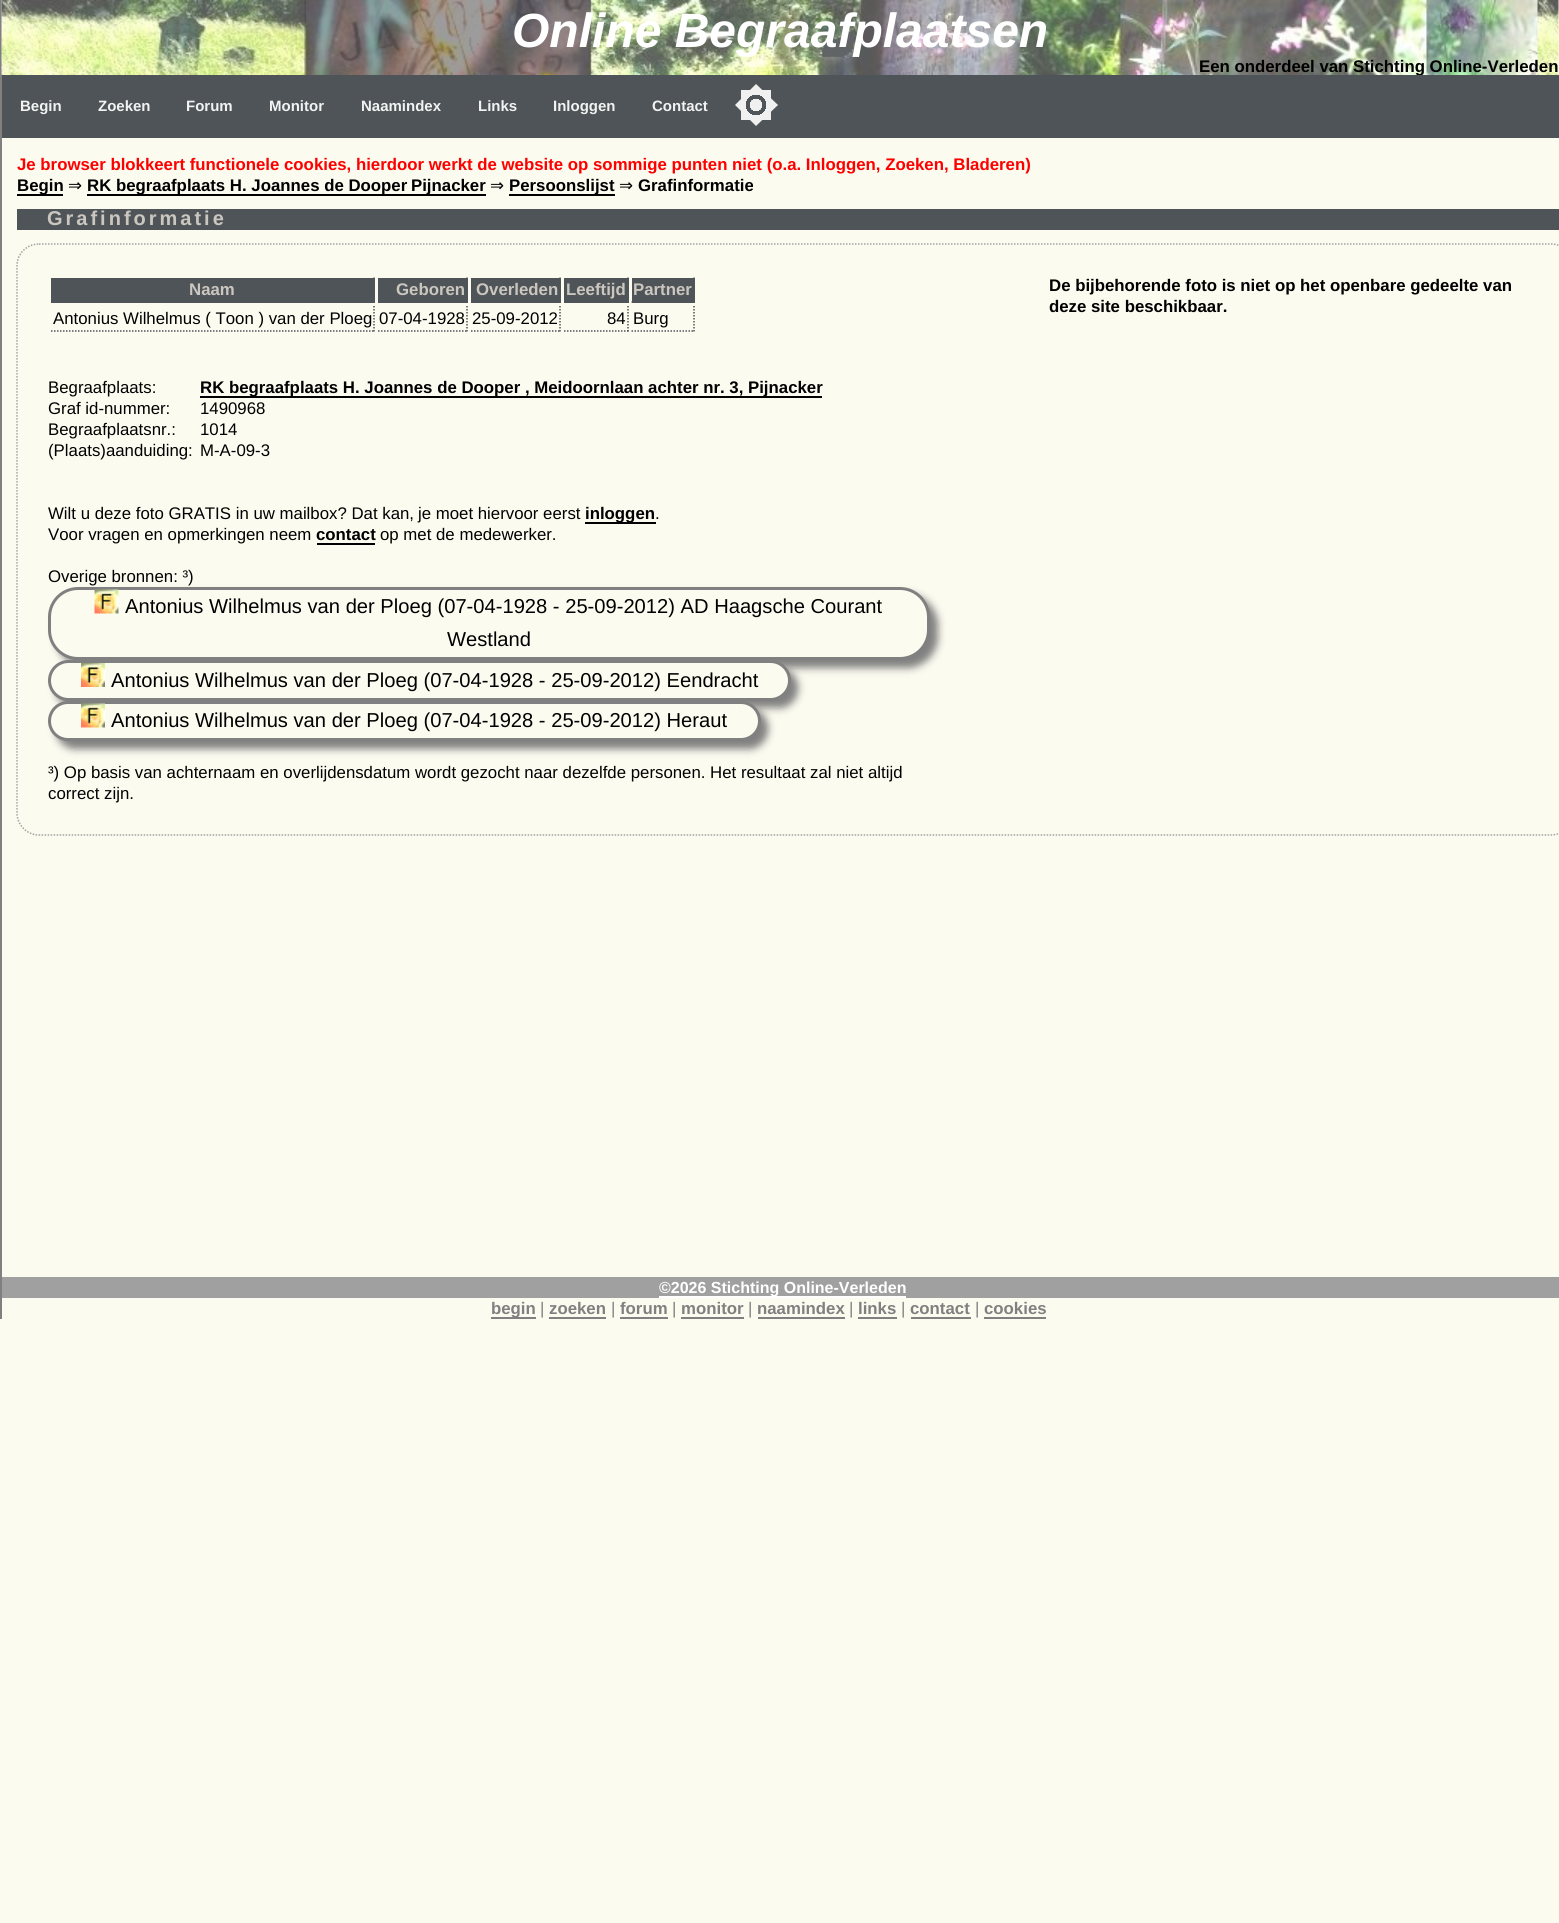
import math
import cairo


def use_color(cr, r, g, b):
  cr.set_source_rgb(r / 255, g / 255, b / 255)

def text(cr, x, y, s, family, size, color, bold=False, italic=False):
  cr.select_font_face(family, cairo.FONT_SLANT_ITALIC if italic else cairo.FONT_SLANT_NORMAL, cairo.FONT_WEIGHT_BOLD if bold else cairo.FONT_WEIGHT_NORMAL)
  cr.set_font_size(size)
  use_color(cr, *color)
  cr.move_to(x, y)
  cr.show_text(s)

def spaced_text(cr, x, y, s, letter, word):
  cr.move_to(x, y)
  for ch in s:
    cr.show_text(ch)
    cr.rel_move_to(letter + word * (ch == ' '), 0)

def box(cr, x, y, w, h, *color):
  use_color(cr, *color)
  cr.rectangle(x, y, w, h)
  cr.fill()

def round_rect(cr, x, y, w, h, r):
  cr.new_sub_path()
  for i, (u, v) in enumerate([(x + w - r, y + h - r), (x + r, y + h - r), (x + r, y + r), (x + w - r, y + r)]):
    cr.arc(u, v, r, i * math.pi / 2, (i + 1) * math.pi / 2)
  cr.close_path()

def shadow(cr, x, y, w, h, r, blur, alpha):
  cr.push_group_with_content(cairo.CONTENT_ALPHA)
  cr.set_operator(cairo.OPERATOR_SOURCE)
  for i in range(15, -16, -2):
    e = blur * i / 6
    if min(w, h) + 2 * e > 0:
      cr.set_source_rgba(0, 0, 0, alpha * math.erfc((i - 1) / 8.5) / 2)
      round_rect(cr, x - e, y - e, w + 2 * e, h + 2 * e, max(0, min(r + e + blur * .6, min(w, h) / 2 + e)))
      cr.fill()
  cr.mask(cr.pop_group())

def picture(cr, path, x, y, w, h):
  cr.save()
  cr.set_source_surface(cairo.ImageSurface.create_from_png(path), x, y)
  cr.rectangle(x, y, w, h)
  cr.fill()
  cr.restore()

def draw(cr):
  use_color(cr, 252, 251, 240)
  cr.paint()
  box(cr, 0, 0, 2, 1319, 128, 128, 128)
  picture(cr, "img_01.png", 1, 0, 1558, 75)
  box(cr, 17, 194, 46, 2, 0, 0, 0)
  box(cr, 87, 194, 399, 2, 0, 0, 0)
  box(cr, 509, 194, 106, 2, 0, 0, 0)
  box(cr, 17, 209, 1542, 21, 78, 84, 87)
  cr.new_path()
  cr.move_to(39, 244)
  cr.line_to(1551, 244)
  cr.curve_to(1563, 244, 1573, 253.5, 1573, 265.5)
  cr.line_to(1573, 813)
  cr.curve_to(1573, 825, 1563, 835, 1551, 835)
  cr.line_to(39, 835)
  cr.curve_to(27, 835, 17, 825, 17, 813)
  cr.line_to(17, 265.5)
  cr.curve_to(17, 253.5, 27, 244, 39, 244)
  cr.close_path()
  use_color(cr, 160, 160, 160)
  cr.set_line_width(1.5)
  cr.set_dash([1.5, 1.5])
  cr.stroke()
  box(cr, 51, 278, 324, 25, 78, 84, 87)
  cr.new_path()
  cr.move_to(374, 277.5)
  cr.line_to(374, 303)
  cr.stroke()
  box(cr, 378, 278, 90, 25, 78, 84, 87)
  cr.new_path()
  cr.move_to(467, 277.5)
  cr.line_to(467, 303)
  cr.stroke()
  box(cr, 471, 278, 90, 25, 78, 84, 87)
  cr.new_path()
  cr.move_to(560, 277.5)
  cr.line_to(560, 303)
  cr.stroke()
  box(cr, 564, 278, 65, 25, 78, 84, 87)
  cr.new_path()
  cr.move_to(628, 277.5)
  cr.line_to(628, 303)
  cr.stroke()
  box(cr, 632, 278, 63, 25, 78, 84, 87)
  cr.new_path()
  cr.move_to(694, 277.5)
  cr.line_to(694, 303)
  cr.stroke()
  cr.new_path()
  cr.move_to(631.5, 302)
  cr.line_to(694.5, 302)
  cr.stroke()
  cr.new_path()
  cr.move_to(374, 306)
  cr.line_to(374, 331.5)
  cr.stroke()
  cr.new_path()
  cr.move_to(51, 331)
  cr.line_to(375, 331)
  cr.stroke()
  cr.new_path()
  cr.move_to(467, 306)
  cr.line_to(467, 331.5)
  cr.stroke()
  cr.new_path()
  cr.move_to(378, 331)
  cr.line_to(468, 331)
  cr.stroke()
  cr.new_path()
  cr.move_to(560, 306)
  cr.line_to(560, 331.5)
  cr.stroke()
  cr.new_path()
  cr.move_to(471, 331)
  cr.line_to(561, 331)
  cr.stroke()
  cr.new_path()
  cr.move_to(628, 306)
  cr.line_to(628, 331.5)
  cr.stroke()
  cr.new_path()
  cr.move_to(564, 331)
  cr.line_to(628.5, 331)
  cr.stroke()
  cr.new_path()
  cr.move_to(694, 306)
  cr.line_to(694, 331.5)
  cr.stroke()
  cr.new_path()
  cr.move_to(631.5, 331)
  cr.line_to(694.5, 331)
  cr.stroke()
  box(cr, 200, 396, 622, 2, 0, 0, 0)
  box(cr, 585, 522, 71, 2, 0, 0, 0)
  box(cr, 317, 543, 58, 2, 0, 0, 0)
  use_color(cr, 128, 128, 128)
  shadow(cr, 56, 594, 882, 74, 30, 4, 1)
  use_color(cr, 252, 251, 240)
  round_rect(cr, 49.5, 588.5, 879, 70, 28.5)
  cr.fill_preserve()
  use_color(cr, 128, 128, 128)
  cr.set_line_width(3)
  cr.set_dash([])
  cr.stroke()
  picture(cr, "img_02.png", 94, 589, 25, 25)
  use_color(cr, 128, 128, 128)
  shadow(cr, 56, 668, 742, 40, 20, 4, 1)
  use_color(cr, 252, 251, 240)
  round_rect(cr, 49.5, 661.5, 740, 38, 19)
  cr.fill_preserve()
  use_color(cr, 128, 128, 128)
  cr.stroke()
  picture(cr, "img_03.png", 81, 663, 24, 24)
  use_color(cr, 128, 128, 128)
  shadow(cr, 56, 708, 712, 41, 20.5, 4, 1)
  use_color(cr, 252, 251, 240)
  round_rect(cr, 49.5, 702.5, 710, 37, 18.5)
  cr.fill_preserve()
  use_color(cr, 128, 128, 128)
  cr.stroke()
  picture(cr, "img_04.png", 81, 703, 24, 25)
  box(cr, 2, 1277, 1557, 21, 160, 160, 160)
  box(cr, 659, 1296, 247, 2, 255, 255, 255)
  box(cr, 491, 1317, 45, 2, 128, 128, 128)
  box(cr, 549, 1317, 57, 2, 128, 128, 128)
  box(cr, 620, 1317, 48, 2, 128, 128, 128)
  box(cr, 681, 1317, 63, 2, 128, 128, 128)
  box(cr, 758, 1317, 87, 2, 128, 128, 128)
  box(cr, 858, 1317, 39, 2, 128, 128, 128)
  box(cr, 911, 1317, 60, 2, 128, 128, 128)
  box(cr, 984, 1317, 62, 2, 128, 128, 128)
  text(cr, 512, 47, "Online Begraafplaatsen", "Liberation Sans", 48, (255, 255, 255), bold=True, italic=True)
  text(cr, 1199, 72, "Een onderdeel van Stichting Online-Verleden", "Liberation Sans", 16.8, (0, 0, 0), bold=True)
  box(cr, 2, 75, 1557, 63, 78, 84, 87)
  text(cr, 20, 111, "Begin", "Liberation Sans", 15, (242, 242, 242), bold=True)
  text(cr, 98, 111, "Zoeken", "Liberation Sans", 15, (242, 242, 242), bold=True)
  text(cr, 186, 111, "Forum", "Liberation Sans", 15, (242, 242, 242), bold=True)
  text(cr, 269, 111, "Monitor", "Liberation Sans", 15, (242, 242, 242), bold=True)
  text(cr, 361, 111, "Naamindex", "Liberation Sans", 15, (242, 242, 242), bold=True)
  text(cr, 478, 111, "Links", "Liberation Sans", 15, (242, 242, 242), bold=True)
  text(cr, 553, 111, "Inloggen", "Liberation Sans", 15, (242, 242, 242), bold=True)
  text(cr, 652, 111, "Contact", "Liberation Sans", 15, (242, 242, 242), bold=True)
  gradient = cairo.RadialGradient(756, 105, 0, 756, 105, 21)
  gradient.add_color_stop_rgba(0, 0.306, 0.329, 0.341, 1)
  gradient.add_color_stop_rgba(0.5, 0.306, 0.329, 0.341, 1)
  gradient.add_color_stop_rgba(0.5, 0.941, 0.941, 0.941, 1)
  cr.set_source(gradient)
  cr.rectangle(741, 90, 30, 30)
  cr.fill()
  gradient = cairo.RadialGradient(756, 105, 0, 756, 105, 21)
  gradient.add_color_stop_rgba(0.3, 0.941, 0.941, 0.941, 1)
  gradient.add_color_stop_rgba(0.31, 0.941, 0.941, 0.941, 0)
  gradient.add_color_stop_rgba(0.5, 0.941, 0.941, 0.941, 0)
  gradient.add_color_stop_rgba(0.5, 0.941, 0.941, 0.941, 1)
  cr.set_source(gradient)
  cr.new_path()
  cr.move_to(756, 126)
  cr.line_to(735, 105)
  cr.line_to(756, 84)
  cr.line_to(778, 105)
  cr.close_path()
  cr.fill()
  text(cr, 17, 170, "Je browser blokkeert functionele cookies, hierdoor werkt de website op sommige punten niet (o.a. Inloggen, Zoeken, Bladeren)", "Liberation Sans", 16.8, (255, 0, 0), bold=True)
  text(cr, 17, 191, "Begin", "Liberation Sans", 16.8, (0, 0, 0), bold=True)
  text(cr, 68, 191, "⇒", "DejaVu Sans", 16.8, (0, 0, 0))
  text(cr, 87, 191, "RK begraafplaats H. Joannes de Dooper", "Liberation Sans", 16.8, (0, 0, 0), bold=True)
  text(cr, 411, 191, "Pijnacker", "Liberation Sans", 16.8, (0, 0, 0), bold=True)
  text(cr, 490, 191, "⇒", "DejaVu Sans", 16.8, (0, 0, 0))
  text(cr, 509, 191, "Persoonslijst", "Liberation Sans", 16.8, (0, 0, 0), bold=True)
  text(cr, 619, 191, "⇒", "DejaVu Sans", 16.8, (0, 0, 0))
  text(cr, 638, 191, "Grafinformatie", "Liberation Sans", 16.8, (0, 0, 0), bold=True)
  cr.set_font_size(20)
  use_color(cr, 203, 199, 192)
  spaced_text(cr, 47, 225, "Grafinformatie", 3, 0)
  text(cr, 189, 295, "Naam", "Liberation Sans", 16.8, (203, 199, 192), bold=True)
  text(cr, 396, 295, "Geboren", "Liberation Sans", 16.8, (203, 199, 192), bold=True)
  text(cr, 476, 295, "Overleden", "Liberation Sans", 16.8, (203, 199, 192), bold=True)
  text(cr, 566, 295, "Leeftijd", "Liberation Sans", 16.8, (203, 199, 192), bold=True)
  text(cr, 633, 295, "Partner", "Liberation Sans", 16.8, (203, 199, 192), bold=True)
  text(cr, 53, 324, "Antonius Wilhelmus ( Toon ) van der Ploeg", "Liberation Sans", 16.8, (0, 0, 0))
  text(cr, 379, 324, "07-04-1928", "Liberation Sans", 16.8, (0, 0, 0))
  text(cr, 472, 324, "25-09-2012", "Liberation Sans", 16.8, (0, 0, 0))
  text(cr, 607, 324, "84", "Liberation Sans", 16.8, (0, 0, 0))
  text(cr, 633, 324, "Burg", "Liberation Sans", 16.8, (0, 0, 0))
  text(cr, 48, 393, "Begraafplaats:", "Liberation Sans", 16.8, (0, 0, 0))
  text(cr, 200, 393, "RK begraafplaats H. Joannes de Dooper , Meidoornlaan achter nr. 3, Pijnacker", "Liberation Sans", 16.8, (0, 0, 0), bold=True)
  text(cr, 48, 414, "Graf id-nummer:", "Liberation Sans", 16.8, (0, 0, 0))
  text(cr, 200, 414, "1490968", "Liberation Sans", 16.8, (0, 0, 0))
  text(cr, 48, 435, "Begraafplaatsnr.:", "Liberation Sans", 16.8, (0, 0, 0))
  text(cr, 200, 435, "1014", "Liberation Sans", 16.8, (0, 0, 0))
  text(cr, 48, 456, "(Plaats)aanduiding:", "Liberation Sans", 16.8, (0, 0, 0))
  text(cr, 200, 456, "M-A-09-3", "Liberation Sans", 16.8, (0, 0, 0))
  text(cr, 48, 519, "Wilt u deze foto GRATIS in uw mailbox? Dat kan,", "Liberation Sans", 16.8, (0, 0, 0))
  text(cr, 418, 519, "je moet hiervoor eerst", "Liberation Sans", 16.8, (0, 0, 0))
  text(cr, 585, 519, "inloggen", "Liberation Sans", 16.8, (0, 0, 0), bold=True)
  text(cr, 655, 519, ".", "Liberation Sans", 16.8, (0, 0, 0))
  text(cr, 48, 540, "Voor vragen en opmerkingen neem", "Liberation Sans", 16.8, (0, 0, 0))
  text(cr, 316, 540, "contact", "Liberation Sans", 16.8, (0, 0, 0), bold=True)
  text(cr, 380, 540, "op met de medewerker.", "Liberation Sans", 16.8, (0, 0, 0))
  text(cr, 48, 582, "Overige bronnen: ³)", "Liberation Sans", 16.8, (0, 0, 0))
  text(cr, 125, 613, "Antonius Wilhelmus van der Ploeg (07-04-1928 - 25-09-2012) AD Haagsche Courant", "Liberation Sans", 20.15, (0, 0, 0))
  text(cr, 447, 646, "Westland", "Liberation Sans", 20.15, (0, 0, 0))
  text(cr, 111, 687, "Antonius Wilhelmus van der Ploeg (07-04-1928 - 25-09-2012) Eendracht", "Liberation Sans", 20.15, (0, 0, 0))
  text(cr, 111, 727, "Antonius Wilhelmus van der Ploeg (07-04-1928 - 25-09-2012) Heraut", "Liberation Sans", 20.15, (0, 0, 0))
  text(cr, 48, 778, "³) Op basis van achternaam en overlijdensdatum wordt gezocht naar dezelfde personen. Het resultaat zal niet altijd", "Liberation Sans", 16.8, (0, 0, 0))
  text(cr, 48, 799, "correct zijn.", "Liberation Sans", 16.8, (0, 0, 0))
  text(cr, 1049, 291, "De bijbehorende foto is niet op het openbare gedeelte van", "Liberation Sans", 16.8, (0, 0, 0), bold=True)
  text(cr, 1049, 312, "deze site beschikbaar.", "Liberation Sans", 16.8, (0, 0, 0), bold=True)
  text(cr, 659, 1293, "©2026 Stichting Online-Verleden", "Liberation Sans", 16, (255, 255, 255), bold=True)
  text(cr, 491, 1314, "begin", "Liberation Sans", 16.8, (128, 128, 128), bold=True)
  text(cr, 540, 1314, "|", "Liberation Sans", 16.8, (128, 128, 128))
  text(cr, 549, 1314, "zoeken", "Liberation Sans", 16.8, (128, 128, 128), bold=True)
  text(cr, 611, 1314, "|", "Liberation Sans", 16.8, (128, 128, 128))
  text(cr, 620, 1314, "forum", "Liberation Sans", 16.8, (128, 128, 128), bold=True)
  text(cr, 672, 1314, "|", "Liberation Sans", 16.8, (128, 128, 128))
  text(cr, 681, 1314, "monitor", "Liberation Sans", 16.8, (128, 128, 128), bold=True)
  text(cr, 748, 1314, "|", "Liberation Sans", 16.8, (128, 128, 128))
  text(cr, 757, 1314, "naamindex", "Liberation Sans", 16.8, (128, 128, 128), bold=True)
  text(cr, 849, 1314, "|", "Liberation Sans", 16.8, (128, 128, 128))
  text(cr, 858, 1314, "links", "Liberation Sans", 16.8, (128, 128, 128), bold=True)
  text(cr, 901, 1314, "|", "Liberation Sans", 16.8, (128, 128, 128))
  text(cr, 910, 1314, "contact", "Liberation Sans", 16.8, (128, 128, 128), bold=True)
  text(cr, 975, 1314, "|", "Liberation Sans", 16.8, (128, 128, 128))
  text(cr, 984, 1314, "cookies", "Liberation Sans", 16.8, (128, 128, 128), bold=True)


surface = cairo.ImageSurface(cairo.FORMAT_RGB24, 1559, 1923)
cr = cairo.Context(surface)
options = cairo.FontOptions()
options.set_hint_metrics(cairo.HINT_METRICS_OFF)
options.set_hint_style(cairo.HINT_STYLE_NONE)
cr.set_font_options(options)
cr.set_miter_limit(4)
draw(cr)
surface.write_to_png("out.png")
